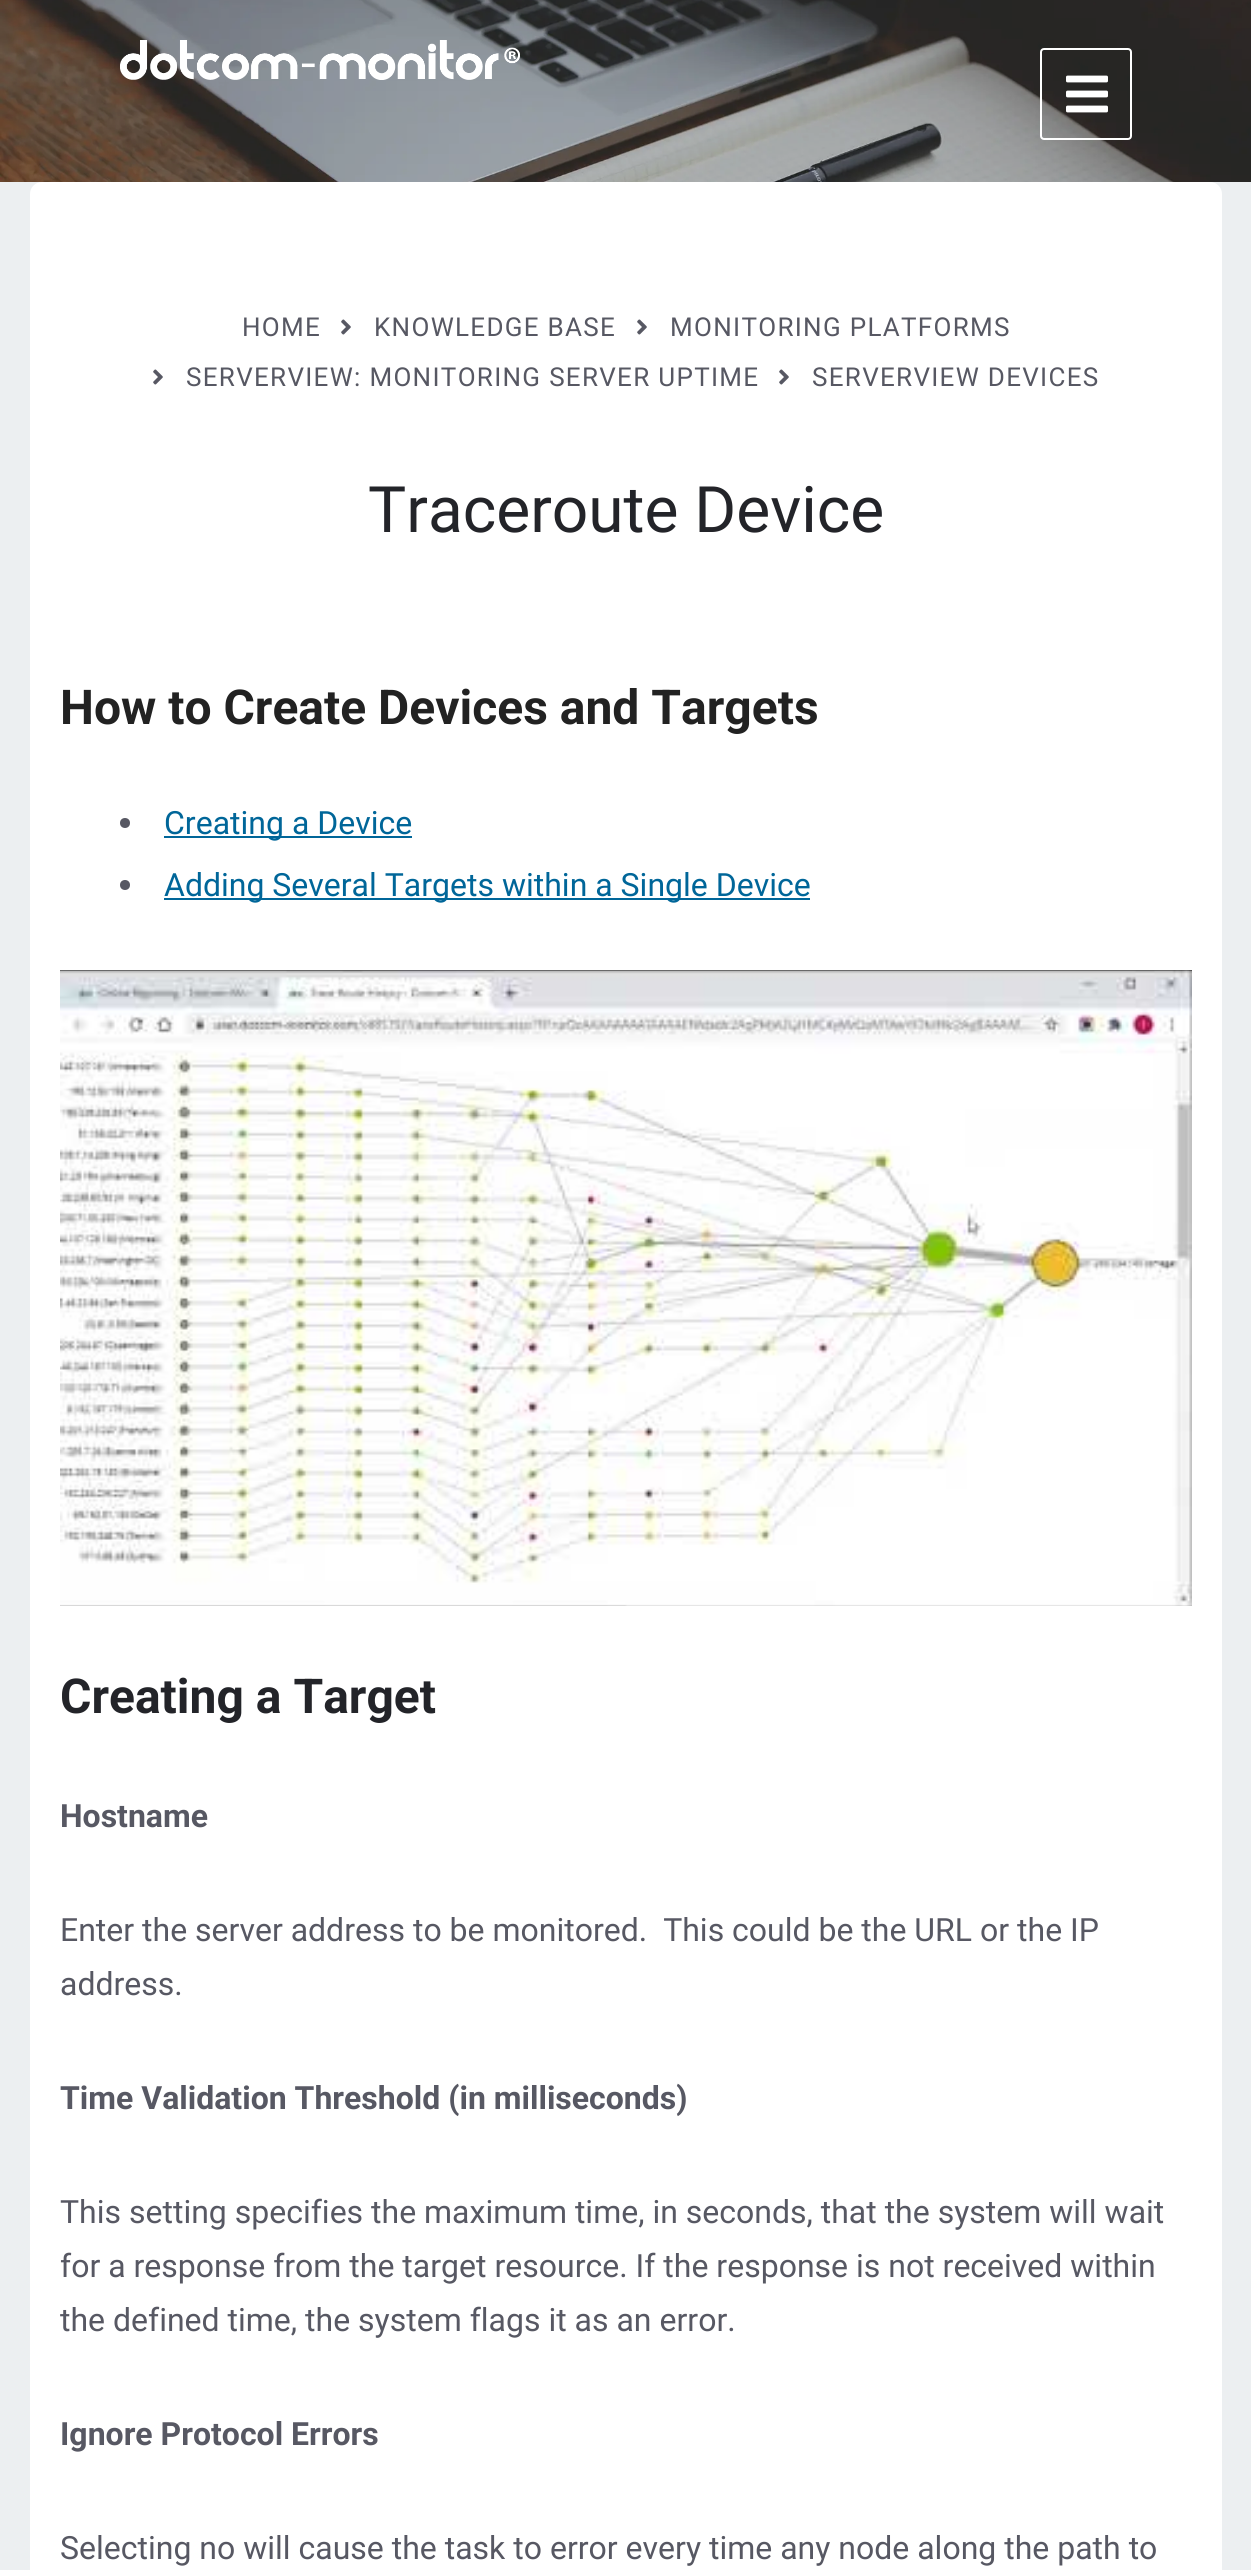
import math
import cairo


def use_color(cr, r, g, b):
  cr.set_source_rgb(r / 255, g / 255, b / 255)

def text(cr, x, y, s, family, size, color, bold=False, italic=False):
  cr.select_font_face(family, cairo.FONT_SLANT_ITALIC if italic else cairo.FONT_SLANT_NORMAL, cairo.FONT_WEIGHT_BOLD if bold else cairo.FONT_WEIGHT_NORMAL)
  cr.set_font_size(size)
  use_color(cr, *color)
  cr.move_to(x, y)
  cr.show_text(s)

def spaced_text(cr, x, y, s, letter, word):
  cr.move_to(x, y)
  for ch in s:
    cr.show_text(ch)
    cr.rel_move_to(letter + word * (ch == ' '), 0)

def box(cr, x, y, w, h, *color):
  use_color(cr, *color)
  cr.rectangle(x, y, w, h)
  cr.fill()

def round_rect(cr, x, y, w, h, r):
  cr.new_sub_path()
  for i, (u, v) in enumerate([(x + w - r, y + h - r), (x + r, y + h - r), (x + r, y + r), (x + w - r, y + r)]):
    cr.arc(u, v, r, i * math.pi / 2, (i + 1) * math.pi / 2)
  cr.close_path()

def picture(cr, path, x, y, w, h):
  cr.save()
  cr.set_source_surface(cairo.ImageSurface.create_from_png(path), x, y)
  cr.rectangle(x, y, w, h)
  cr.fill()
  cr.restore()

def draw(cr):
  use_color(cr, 236, 239, 241)
  cr.paint()
  picture(cr, "img_01.png", 0, 0, 1251, 182)
  picture(cr, "img_02.png", 120, 40, 400, 40)
  round_rect(cr, 1041, 49, 90, 90, 3)
  use_color(cr, 255, 255, 255)
  cr.stroke()
  picture(cr, "img_03.png", 1066, 75, 42, 38)
  round_rect(cr, 30, 182, 1192, 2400, 12)
  cr.fill()
  picture(cr, "img_04.png", 341, 319, 10, 16)
  picture(cr, "img_04.png", 637, 319, 10, 16)
  picture(cr, "img_04.png", 153, 369, 10, 16)
  picture(cr, "img_04.png", 779, 369, 10, 16)
  use_color(cr, 87, 88, 99)
  cr.arc(125, 823, 5, 0, 2 * math.pi)
  cr.fill()
  box(cr, 164, 836, 248, 2, 0, 102, 153)
  use_color(cr, 87, 88, 99)
  cr.arc(125, 885, 5, 0, 2 * math.pi)
  cr.fill()
  box(cr, 164, 898, 646, 2, 0, 102, 153)
  picture(cr, "img_05.png", 60, 970, 1132, 636)
  cr.select_font_face("Roboto")
  cr.set_font_size(26)
  use_color(cr, 87, 88, 99)
  spaced_text(cr, 242, 336, "HOME", 1.3, 0)
  spaced_text(cr, 374, 336, "KNOWLEDGE BASE", 1.3, 0)
  spaced_text(cr, 670, 336, "MONITORING PLATFORMS", 1.3, 0)
  spaced_text(cr, 186, 386, "SERVERVIEW: MONITORING SERVER UPTIME", 1.3, 0)
  spaced_text(cr, 812, 386, "SERVERVIEW DEVICES", 1.3, 0)
  text(cr, 368, 532, "Traceroute Device", "Roboto", 64, (35, 36, 41))
  text(cr, 60, 724, "How to Create Devices and Targets", "Roboto", 48, (34, 34, 34), bold=True)
  text(cr, 164, 834, "Creating a Device", "Roboto", 32, (0, 102, 153))
  text(cr, 164, 896, "Adding Several Targets within a Single Device", "Roboto", 32, (0, 102, 153))
  text(cr, 60, 1713, "Creating a Target", "Roboto", 48, (35, 36, 41), bold=True)
  text(cr, 60, 1827, "Hostname", "Roboto", 32, (87, 88, 99), bold=True)
  text(cr, 60, 1941, "Enter the server address to be monitored.  This could be the URL or the IP", "Roboto", 32, (87, 88, 99))
  text(cr, 60, 1995, "address.", "Roboto", 32, (87, 88, 99))
  text(cr, 60, 2109, "Time Validation Threshold (in milliseconds)", "Roboto", 32, (87, 88, 99), bold=True)
  text(cr, 60, 2223, "This setting specifies the maximum time, in seconds, that the system will wait", "Roboto", 32, (87, 88, 99))
  text(cr, 60, 2277, "for a response from the target resource. If the response is not received within", "Roboto", 32, (87, 88, 99))
  text(cr, 60, 2331, "the defined time, the system flags it as an error.", "Roboto", 32, (87, 88, 99))
  text(cr, 60, 2445, "Ignore Protocol Errors", "Roboto", 32, (87, 88, 99), bold=True)
  text(cr, 60, 2559, "Selecting no will cause the task to error every time any node along the path to", "Roboto", 32, (87, 88, 99))


surface = cairo.ImageSurface(cairo.FORMAT_RGB24, 1251, 2570)
cr = cairo.Context(surface)
options = cairo.FontOptions()
options.set_hint_metrics(cairo.HINT_METRICS_OFF)
options.set_hint_style(cairo.HINT_STYLE_NONE)
cr.set_font_options(options)
cr.set_miter_limit(4)
draw(cr)
surface.write_to_png("out.png")
